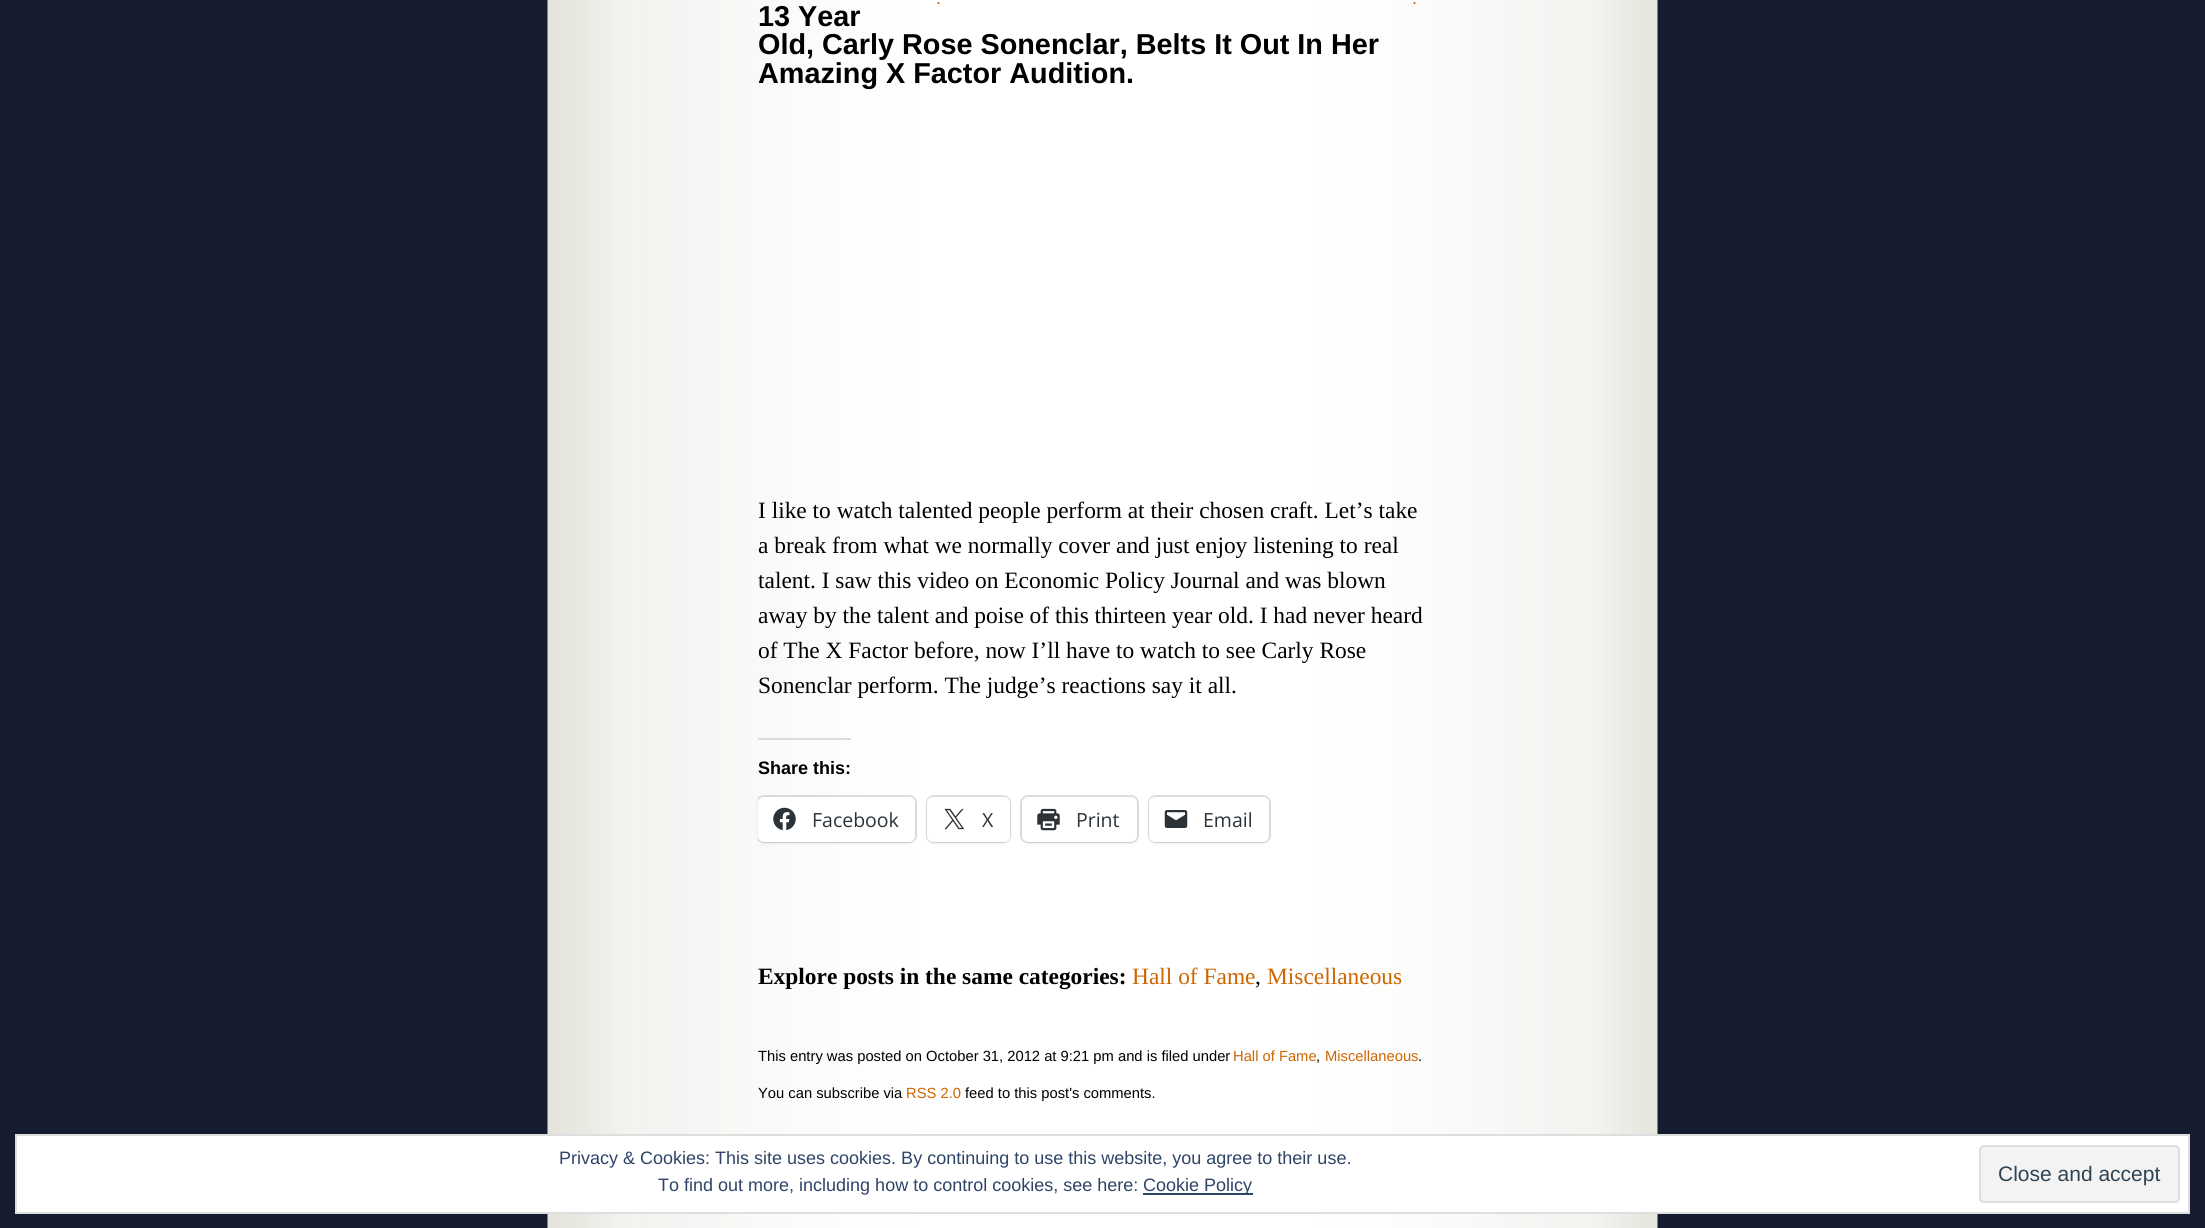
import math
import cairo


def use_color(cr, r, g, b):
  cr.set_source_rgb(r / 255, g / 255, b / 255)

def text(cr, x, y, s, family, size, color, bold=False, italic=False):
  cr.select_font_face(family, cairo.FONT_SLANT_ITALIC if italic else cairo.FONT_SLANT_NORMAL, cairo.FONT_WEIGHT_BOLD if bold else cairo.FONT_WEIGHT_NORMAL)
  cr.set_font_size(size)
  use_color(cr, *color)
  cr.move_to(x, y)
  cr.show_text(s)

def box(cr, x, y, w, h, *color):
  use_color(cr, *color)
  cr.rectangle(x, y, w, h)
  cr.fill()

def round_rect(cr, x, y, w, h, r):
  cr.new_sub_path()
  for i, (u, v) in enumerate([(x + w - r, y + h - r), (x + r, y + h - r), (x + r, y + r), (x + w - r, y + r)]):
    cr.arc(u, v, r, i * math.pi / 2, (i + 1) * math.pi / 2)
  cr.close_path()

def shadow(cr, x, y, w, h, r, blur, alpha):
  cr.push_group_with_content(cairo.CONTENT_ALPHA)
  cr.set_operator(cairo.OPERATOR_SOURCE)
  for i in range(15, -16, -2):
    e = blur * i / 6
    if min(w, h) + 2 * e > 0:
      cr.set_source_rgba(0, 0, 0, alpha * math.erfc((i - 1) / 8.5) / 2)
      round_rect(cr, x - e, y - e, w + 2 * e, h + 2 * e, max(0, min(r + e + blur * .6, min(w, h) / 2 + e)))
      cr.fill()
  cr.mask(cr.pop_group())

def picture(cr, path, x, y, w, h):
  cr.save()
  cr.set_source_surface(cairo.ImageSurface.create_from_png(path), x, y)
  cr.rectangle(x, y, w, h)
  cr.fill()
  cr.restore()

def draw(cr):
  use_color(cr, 21, 28, 47)
  cr.paint()
  picture(cr, "img_01.png", 547, 0, 1111, 1228)
  box(cr, 758, 738, 93, 2, 220, 220, 222)
  cr.save()
  cr.rectangle(758, 0, 675, 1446)
  cr.clip()
  round_rect(cr, 757, 796, 159, 46, 7)
  cr.set_source_rgba(0, 0, 0, 0.12)
  cr.stroke()
  cr.restore()
  cr.save()
  cr.set_fill_rule(cairo.FILL_RULE_EVEN_ODD)
  cr.new_path()
  cr.move_to(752, 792)
  cr.line_to(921, 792)
  cr.line_to(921, 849)
  cr.line_to(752, 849)
  cr.close_path()
  cr.move_to(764, 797)
  cr.line_to(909, 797)
  cr.curve_to(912.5, 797, 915, 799.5, 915, 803)
  cr.line_to(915, 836)
  cr.curve_to(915, 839.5, 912.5, 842, 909, 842)
  cr.line_to(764, 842)
  cr.curve_to(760.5, 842, 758, 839.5, 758, 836)
  cr.line_to(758, 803)
  cr.curve_to(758, 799.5, 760.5, 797, 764, 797)
  cr.close_path()
  cr.clip()
  use_color(cr, 0, 0, 0)
  shadow(cr, 758, 798, 157, 45, 6, 1.5, 0.12)
  cr.restore()
  use_color(cr, 255, 255, 255)
  round_rect(cr, 758, 797, 157, 45, 6)
  cr.fill()
  picture(cr, "img_02.png", 773, 807, 23, 24)
  round_rect(cr, 927, 796, 83, 46, 7)
  use_color(cr, 224, 224, 224)
  cr.stroke()
  use_color(cr, 0, 0, 0)
  shadow(cr, 927, 798, 83, 45, 6, 1.5, 0.12)
  use_color(cr, 255, 255, 255)
  round_rect(cr, 927, 797, 83, 45, 6)
  cr.fill()
  picture(cr, "img_03.png", 944, 808, 21, 22)
  round_rect(cr, 1021, 796, 117, 46, 7)
  use_color(cr, 224, 224, 224)
  cr.stroke()
  use_color(cr, 0, 0, 0)
  shadow(cr, 1022, 798, 115, 45, 6, 1.5, 0.12)
  use_color(cr, 255, 255, 255)
  round_rect(cr, 1022, 797, 115, 45, 6)
  cr.fill()
  picture(cr, "img_04.png", 1037, 808, 23, 23)
  round_rect(cr, 1149, 796, 121, 46, 7)
  use_color(cr, 224, 224, 224)
  cr.stroke()
  use_color(cr, 0, 0, 0)
  shadow(cr, 1149, 798, 120, 45, 6, 1.5, 0.12)
  use_color(cr, 255, 255, 255)
  round_rect(cr, 1149, 797, 120, 45, 6)
  cr.fill()
  picture(cr, "img_05.png", 1164, 810, 24, 18)
  cr.rectangle(16, 1135, 2173, 78)
  cr.fill_preserve()
  use_color(cr, 222, 222, 222)
  cr.stroke()
  box(cr, 1143, 1193, 110, 2, 46, 68, 103)
  use_color(cr, 243, 243, 243)
  round_rect(cr, 1980, 1146, 199, 56, 4)
  cr.fill_preserve()
  use_color(cr, 222, 222, 222)
  cr.stroke()
  text(cr, 936, 4, ".", "Liberation Sans", 18, (204, 102, 0))
  text(cr, 1412, 4, ".", "Liberation Sans", 18, (204, 102, 0))
  text(cr, 758, 26, "13 Year", "Liberation Sans", 28.8, (0, 0, 0), bold=True)
  text(cr, 758, 54, "Old, Carly Rose Sonenclar, Belts It Out In Her", "Liberation Sans", 28.8, (0, 0, 0), bold=True)
  text(cr, 758, 83, "Amazing X Factor Audition.", "Liberation Sans", 28.8, (0, 0, 0), bold=True)
  text(cr, 758, 518, "I like to watch talented people perform at their chosen craft. Let’s take", "Liberation Serif", 23.4, (0, 0, 0))
  text(cr, 758, 553, "a break from what we normally cover and just enjoy listening to real", "Liberation Serif", 23.4, (0, 0, 0))
  text(cr, 758, 588, "talent. I saw this video on Economic Policy Journal and was blown", "Liberation Serif", 23.4, (0, 0, 0))
  text(cr, 758, 623, "away by the talent and poise of this thirteen year old. I had never heard", "Liberation Serif", 23.4, (0, 0, 0))
  text(cr, 758, 658, "of The X Factor before, now I’ll have to watch to see Carly Rose", "Liberation Serif", 23.4, (0, 0, 0))
  text(cr, 758, 693, "Sonenclar perform. The judge’s reactions say it all.", "Liberation Serif", 23.4, (0, 0, 0))
  text(cr, 758, 774, "Share this:", "Liberation Sans", 18, (0, 0, 0), bold=True)
  text(cr, 812, 827, "Facebook", "Open Sans", 19.5, (44, 51, 56))
  text(cr, 982, 827, "X", "Open Sans", 19.5, (44, 51, 56))
  text(cr, 1076, 827, "Print", "Open Sans", 19.5, (44, 51, 56))
  text(cr, 1203, 827, "Email", "Open Sans", 19.5, (44, 51, 56))
  text(cr, 758, 984, "Explore posts in the same categories:", "Liberation Serif", 23.4, (0, 0, 0), bold=True)
  text(cr, 1132, 984, "Hall of Fame", "Liberation Serif", 23.4, (204, 102, 0))
  text(cr, 1255, 984, ",", "Liberation Serif", 23.4, (0, 0, 0))
  text(cr, 1267, 984, "Miscellaneous", "Liberation Serif", 23.4, (204, 102, 0))
  text(cr, 758, 1061, "This entry was posted on October 31, 2012 at 9:21 pm and is filed under", "Liberation Sans", 14.75, (0, 0, 0))
  text(cr, 1233, 1061, "Hall of Fame", "Liberation Sans", 14.75, (204, 102, 0))
  text(cr, 1316, 1061, ",", "Liberation Sans", 14.75, (0, 0, 0))
  text(cr, 1325, 1061, "Miscellaneous", "Liberation Sans", 14.75, (204, 102, 0))
  text(cr, 1418, 1061, ".", "Liberation Sans", 14.75, (0, 0, 0))
  text(cr, 758, 1098, "You can subscribe via", "Liberation Sans", 14.75, (0, 0, 0))
  text(cr, 906, 1098, "RSS 2.0", "Liberation Sans", 14.75, (204, 102, 0))
  text(cr, 965, 1098, "feed to this post's comments.", "Liberation Sans", 14.75, (0, 0, 0))
  text(cr, 559, 1164, "Privacy & Cookies: This site uses cookies. By continuing to use this website, you agree to their use.", "Liberation Sans", 18, (46, 68, 103))
  text(cr, 658, 1191, "To find out more, including how to control cookies, see here:", "Liberation Sans", 18, (46, 68, 103))
  text(cr, 1143, 1191, "Cookie Policy", "Liberation Sans", 18, (46, 68, 103))
  text(cr, 1998, 1181, "Close and accept", "Liberation Sans", 21, (46, 68, 83))


surface = cairo.ImageSurface(cairo.FORMAT_RGB24, 2205, 1228)
cr = cairo.Context(surface)
options = cairo.FontOptions()
options.set_hint_metrics(cairo.HINT_METRICS_OFF)
options.set_hint_style(cairo.HINT_STYLE_NONE)
cr.set_font_options(options)
cr.set_miter_limit(4)
draw(cr)
surface.write_to_png("out.png")
